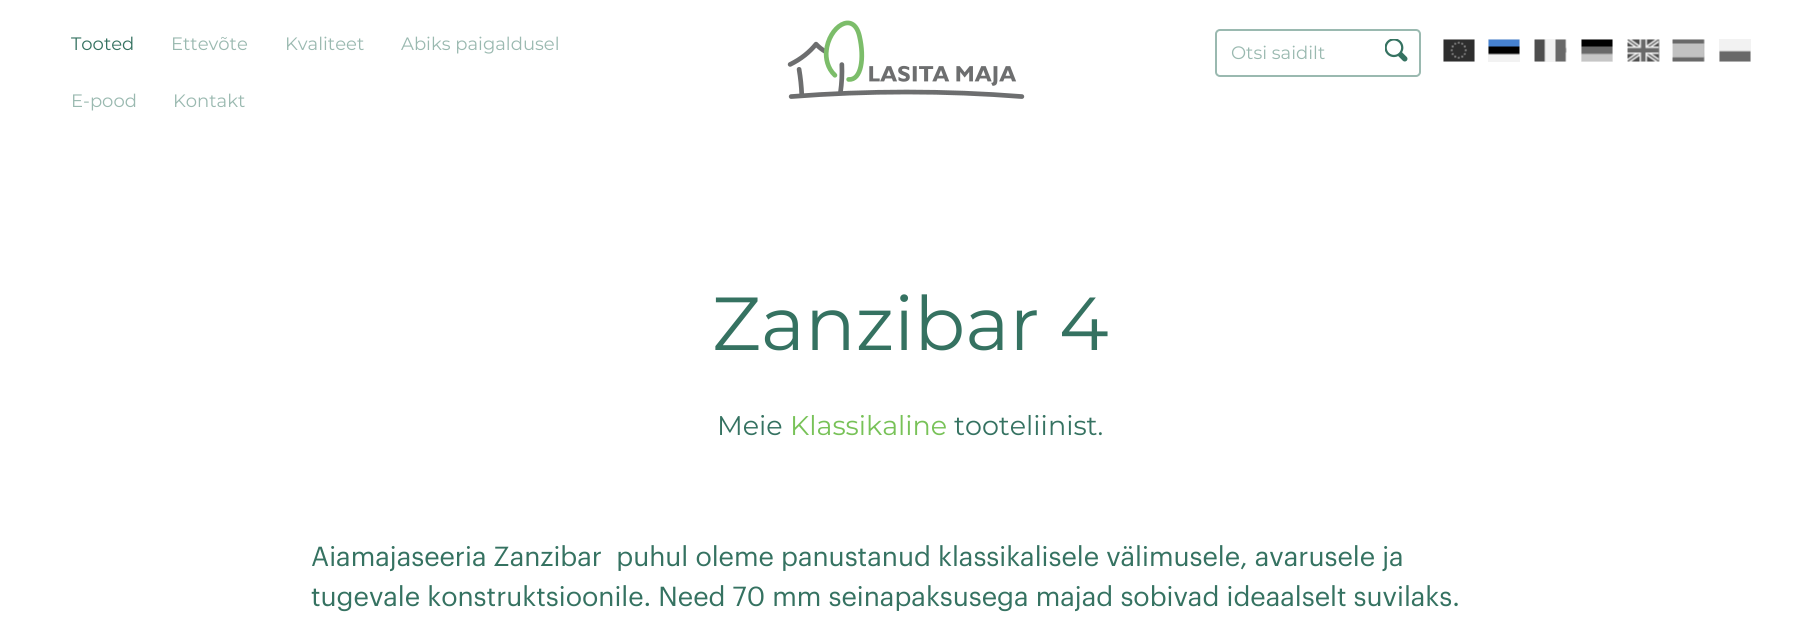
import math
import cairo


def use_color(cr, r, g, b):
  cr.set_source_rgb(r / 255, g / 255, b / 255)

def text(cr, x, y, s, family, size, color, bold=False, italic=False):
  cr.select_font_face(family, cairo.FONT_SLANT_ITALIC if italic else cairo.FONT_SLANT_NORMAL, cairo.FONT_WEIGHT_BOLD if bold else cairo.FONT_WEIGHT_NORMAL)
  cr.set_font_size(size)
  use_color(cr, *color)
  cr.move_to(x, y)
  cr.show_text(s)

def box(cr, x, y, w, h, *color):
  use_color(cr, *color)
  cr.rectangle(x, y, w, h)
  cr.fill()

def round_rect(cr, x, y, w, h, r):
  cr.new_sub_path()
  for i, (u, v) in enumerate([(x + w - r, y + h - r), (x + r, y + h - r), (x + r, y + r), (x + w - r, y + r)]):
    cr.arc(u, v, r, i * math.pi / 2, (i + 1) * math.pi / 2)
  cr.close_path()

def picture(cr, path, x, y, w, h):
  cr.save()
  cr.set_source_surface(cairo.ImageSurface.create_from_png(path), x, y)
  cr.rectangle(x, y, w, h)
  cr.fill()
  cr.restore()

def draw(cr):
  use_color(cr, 255, 255, 255)
  cr.paint()
  box(cr, 1719, 39, 32, 23, 242, 242, 242)
  box(cr, 1673, 39, 31, 23, 242, 242, 242)
  box(cr, 1628, 39, 31, 23, 242, 242, 242)
  box(cr, 1581, 39, 32, 23, 242, 242, 242)
  box(cr, 1535, 39, 31, 23, 242, 242, 242)
  box(cr, 1488, 39, 32, 23, 242, 242, 242)
  box(cr, 1443, 39, 32, 23, 242, 242, 242)
  picture(cr, "img_01.png", 787, 20, 238, 79)
  round_rect(cr, 1216, 30, 204, 46, 4)
  use_color(cr, 154, 185, 176)
  cr.stroke()
  picture(cr, "img_02.png", 1385, 39, 23, 23)
  picture(cr, "img_03.png", 1443, 39, 32, 23)
  picture(cr, "img_04.png", 1488, 39, 32, 16)
  picture(cr, "img_05.png", 1534, 39, 33, 23)
  picture(cr, "img_06.png", 1581, 39, 32, 23)
  picture(cr, "img_07.png", 1627, 39, 33, 23)
  picture(cr, "img_08.png", 1672, 39, 33, 23)
  picture(cr, "img_09.png", 1719, 50, 32, 12)
  text(cr, 71, 50, "Tooted", "Montserrat", 18, (53, 114, 97))
  text(cr, 171, 50, "Ettevõte", "Montserrat", 18, (154, 185, 176))
  text(cr, 285, 50, "Kvaliteet", "Montserrat", 18, (154, 185, 176))
  text(cr, 401, 50, "Abiks paigaldusel", "Montserrat", 18, (154, 185, 176))
  text(cr, 71, 107, "E-pood", "Montserrat", 18, (154, 185, 176))
  text(cr, 173, 107, "Kontakt", "Montserrat", 18, (154, 185, 176))
  text(cr, 1231, 59, "Otsi saidilt", "Montserrat", 18, (154, 185, 176))
  text(cr, 712, 350, "Zanzibar 4", "Montserrat", 75, (53, 114, 97))
  text(cr, 717, 435, "Meie", "Montserrat", 27, (53, 114, 97))
  text(cr, 790, 435, "Klassikaline", "Montserrat", 27, (120, 194, 88))
  text(cr, 954, 435, "tooteliinist.", "Montserrat", 27, (53, 114, 97))
  text(cr, 311, 566, "Aiamajaseeria Zanzibar  puhul oleme panustanud klassikalisele välimusele, avarusele ja", "Graphik", 27, (53, 114, 97))
  text(cr, 311, 606, "tugevale konstruktsioonile. Need 70 mm seinapaksusega majad sobivad ideaalselt suvilaks.", "Graphik", 27, (53, 114, 97))


surface = cairo.ImageSurface(cairo.FORMAT_RGB24, 1820, 640)
cr = cairo.Context(surface)
options = cairo.FontOptions()
options.set_hint_metrics(cairo.HINT_METRICS_OFF)
options.set_hint_style(cairo.HINT_STYLE_NONE)
cr.set_font_options(options)
cr.set_miter_limit(4)
draw(cr)
surface.write_to_png("out.png")
